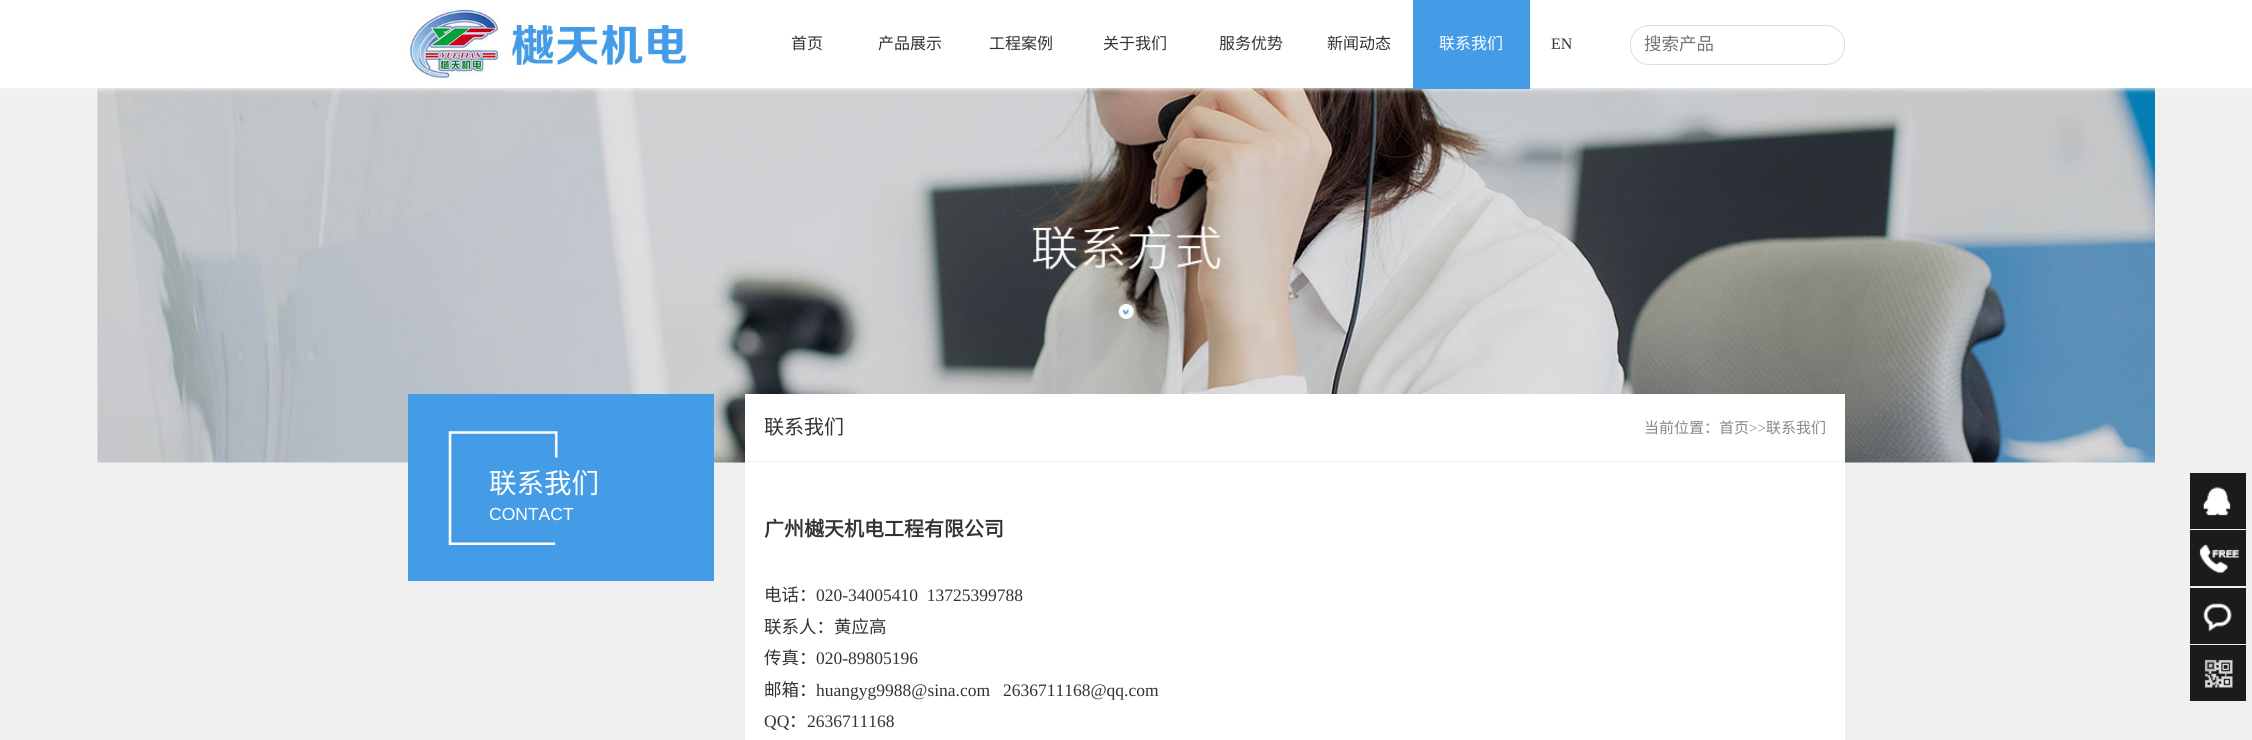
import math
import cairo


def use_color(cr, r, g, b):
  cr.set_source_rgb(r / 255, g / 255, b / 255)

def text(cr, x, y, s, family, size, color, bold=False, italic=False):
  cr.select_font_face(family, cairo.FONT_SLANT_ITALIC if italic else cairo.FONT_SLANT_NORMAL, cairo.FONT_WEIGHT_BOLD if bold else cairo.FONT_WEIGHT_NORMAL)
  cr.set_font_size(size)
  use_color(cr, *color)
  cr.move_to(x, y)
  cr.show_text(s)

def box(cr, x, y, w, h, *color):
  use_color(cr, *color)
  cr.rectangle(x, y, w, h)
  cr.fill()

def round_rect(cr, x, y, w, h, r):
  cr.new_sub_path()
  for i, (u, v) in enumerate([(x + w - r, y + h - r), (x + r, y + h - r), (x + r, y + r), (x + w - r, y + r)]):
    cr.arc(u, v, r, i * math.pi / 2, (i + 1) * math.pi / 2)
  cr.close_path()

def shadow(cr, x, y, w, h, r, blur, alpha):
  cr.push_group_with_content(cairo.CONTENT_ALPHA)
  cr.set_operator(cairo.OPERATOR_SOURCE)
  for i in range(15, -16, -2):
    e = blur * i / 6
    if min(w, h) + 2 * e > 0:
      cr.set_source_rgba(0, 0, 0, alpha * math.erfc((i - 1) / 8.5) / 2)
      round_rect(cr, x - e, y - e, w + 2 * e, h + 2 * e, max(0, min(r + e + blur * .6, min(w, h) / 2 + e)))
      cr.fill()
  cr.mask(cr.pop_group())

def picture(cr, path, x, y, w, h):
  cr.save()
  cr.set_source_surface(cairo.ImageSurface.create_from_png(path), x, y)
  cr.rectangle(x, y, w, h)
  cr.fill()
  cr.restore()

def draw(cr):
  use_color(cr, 240, 240, 240)
  cr.paint()
  picture(cr, "img_02.png", 97, 88, 2058, 375)
  use_color(cr, 243, 244, 245)
  shadow(cr, 0, 1, 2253, 88, 0, 2.5, 1)
  box(cr, 0, 0, 2252, 88, 255, 255, 255)
  picture(cr, "img_01.png", 407, 9, 281, 70)
  box(cr, 1413, 0, 117, 89, 68, 156, 231)
  round_rect(cr, 1630.5, 25.5, 214, 39, 18.5)
  use_color(cr, 221, 221, 221)
  cr.set_line_width(1)
  cr.stroke()
  box(cr, 408, 394, 306, 187, 68, 156, 231)
  picture(cr, "img_03.png", 448, 431, 110, 114)
  box(cr, 745, 394, 1100, 346, 255, 255, 255)
  box(cr, 745, 461, 1100, 1, 240, 240, 240)
  box(cr, 2190, 473, 56, 56, 27, 27, 29)
  picture(cr, "img_04.png", 2203, 487, 28, 29)
  box(cr, 2190, 530, 56, 56, 27, 27, 29)
  picture(cr, "img_05.png", 2199, 544, 40, 29)
  box(cr, 2190, 588, 56, 56, 27, 27, 29)
  picture(cr, "img_06.png", 2203, 603, 29, 29)
  box(cr, 2190, 645, 56, 56, 27, 27, 29)
  picture(cr, "img_07.png", 2204, 659, 29, 29)
  text(cr, 791, 49, "首页", "Noto Sans CJK SC", 16, (51, 51, 51))
  text(cr, 878, 49, "产品展示", "Noto Sans CJK SC", 16, (51, 51, 51))
  text(cr, 989, 49, "工程案例", "Noto Sans CJK SC", 16, (51, 51, 51))
  text(cr, 1103, 49, "关于我们", "Noto Sans CJK SC", 16, (51, 51, 51))
  text(cr, 1219, 49, "服务优势", "Noto Sans CJK SC", 16, (51, 51, 51))
  text(cr, 1327, 49, "新闻动态", "Noto Sans CJK SC", 16, (51, 51, 51))
  text(cr, 1439, 49, "联系我们", "Noto Sans CJK SC", 16, (255, 255, 255))
  text(cr, 1551, 49, "EN", "Liberation Serif", 16, (51, 51, 51))
  text(cr, 1644, 50, "搜索产品", "Noto Sans CJK SC", 17.5, (117, 117, 117))
  text(cr, 489, 493, "联系我们", "Noto Sans CJK SC", 27.5, (255, 255, 255))
  text(cr, 489, 520, "CONTACT", "Liberation Sans", 17.5, (255, 255, 255))
  text(cr, 764, 434, "联系我们", "Noto Sans CJK SC", 20, (51, 51, 51))
  text(cr, 1644, 433, "当前位置：首页", "Noto Sans CJK SC", 15, (136, 136, 136))
  text(cr, 1749, 433, ">>", "Liberation Serif", 15, (136, 136, 136))
  text(cr, 1766, 433, "联系我们", "Noto Sans CJK SC", 15, (136, 136, 136))
  text(cr, 764, 536, "广州樾天机电工程有限公司", "Noto Sans CJK SC", 20, (51, 51, 51), bold=True)
  text(cr, 764, 601, "电话：", "Noto Sans CJK SC", 17.5, (51, 51, 51))
  text(cr, 816, 601, "020-34005410  13725399788", "Liberation Serif", 17.5, (51, 51, 51))
  text(cr, 764, 633, "联系人：黄应高", "Noto Sans CJK SC", 17.5, (51, 51, 51))
  text(cr, 764, 664, "传真：", "Noto Sans CJK SC", 17.5, (51, 51, 51))
  text(cr, 816, 664, "020-89805196", "Liberation Serif", 17.5, (51, 51, 51))
  text(cr, 764, 696, "邮箱：", "Noto Sans CJK SC", 17.5, (51, 51, 51))
  text(cr, 816, 696, "huangyg9988@sina.com", "Liberation Serif", 17.5, (51, 51, 51))
  text(cr, 1003, 696, "2636711168@qq.com", "Liberation Serif", 17.5, (51, 51, 51))
  text(cr, 764, 727, "QQ", "Liberation Serif", 17.5, (51, 51, 51))
  text(cr, 789, 727, "：", "Noto Sans CJK SC", 17.5, (51, 51, 51))
  text(cr, 807, 727, "2636711168", "Liberation Serif", 17.5, (51, 51, 51))


surface = cairo.ImageSurface(cairo.FORMAT_RGB24, 2252, 740)
cr = cairo.Context(surface)
options = cairo.FontOptions()
options.set_hint_metrics(cairo.HINT_METRICS_OFF)
options.set_hint_style(cairo.HINT_STYLE_NONE)
cr.set_font_options(options)
cr.set_miter_limit(4)
draw(cr)
surface.write_to_png("out.png")
